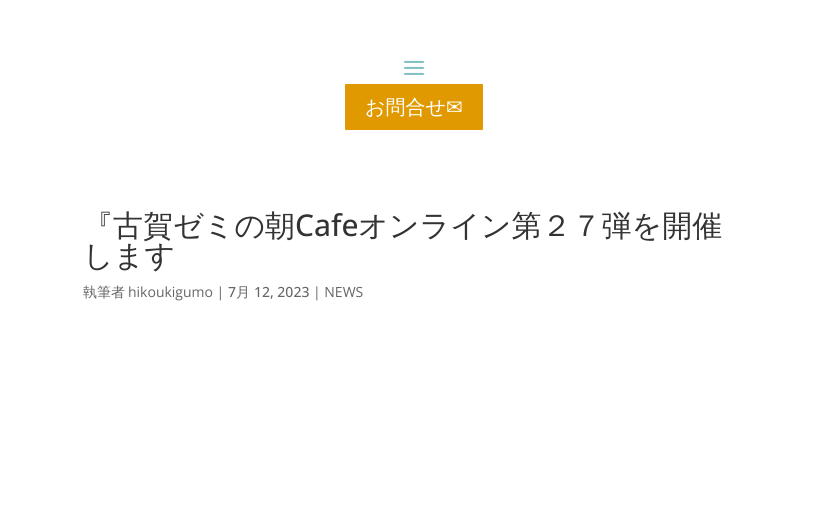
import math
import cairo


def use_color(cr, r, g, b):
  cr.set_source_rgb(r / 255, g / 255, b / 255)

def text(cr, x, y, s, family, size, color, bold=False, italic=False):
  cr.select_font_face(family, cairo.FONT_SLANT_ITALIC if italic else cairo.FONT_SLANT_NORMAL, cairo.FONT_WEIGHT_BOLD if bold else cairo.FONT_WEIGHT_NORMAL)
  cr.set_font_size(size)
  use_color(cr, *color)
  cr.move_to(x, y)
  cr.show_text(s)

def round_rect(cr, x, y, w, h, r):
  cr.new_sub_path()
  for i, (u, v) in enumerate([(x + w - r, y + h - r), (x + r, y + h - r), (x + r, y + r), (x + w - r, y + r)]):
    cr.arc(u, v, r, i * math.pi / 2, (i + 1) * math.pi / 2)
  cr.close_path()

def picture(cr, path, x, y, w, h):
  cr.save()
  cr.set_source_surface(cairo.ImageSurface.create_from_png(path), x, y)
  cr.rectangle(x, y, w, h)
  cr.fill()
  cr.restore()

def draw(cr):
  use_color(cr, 255, 255, 255)
  cr.paint()
  picture(cr, "img_01.png", 404, 60, 20, 15)
  use_color(cr, 224, 153, 0)
  round_rect(cr, 344, 83, 140, 48, 2)
  cr.fill_preserve()
  use_color(cr, 255, 255, 255)
  cr.stroke()
  text(cr, 365, 114, "お問合せ", "WenQuanYi Zen Hei Medium", 20, (255, 255, 255))
  text(cr, 446, 114, "✉", "DejaVu Sans", 20, (255, 255, 255))
  text(cr, 83, 236, "『古賀ゼミの朝", "WenQuanYi Zen Hei Medium", 30, (51, 51, 51))
  text(cr, 295, 236, "Cafe", "Open Sans Medium", 30, (51, 51, 51))
  text(cr, 358, 236, "オンライン第２７弾を開催", "WenQuanYi Zen Hei Medium", 30, (51, 51, 51))
  text(cr, 83, 266, "します", "WenQuanYi Zen Hei Medium", 30, (51, 51, 51))
  text(cr, 83, 297, "執筆者", "WenQuanYi Zen Hei Medium", 14, (102, 102, 102))
  text(cr, 128, 297, "hikoukigumo |", "Open Sans", 14, (102, 102, 102))
  text(cr, 228, 297, "7", "Open Sans Medium", 14, (102, 102, 102))
  text(cr, 236, 297, "月", "WenQuanYi Zen Hei Medium", 14, (102, 102, 102))
  text(cr, 254, 297, "12, 2023", "Open Sans Medium", 14, (102, 102, 102))
  text(cr, 313, 297, "| NEWS", "Open Sans", 14, (102, 102, 102))


surface = cairo.ImageSurface(cairo.FORMAT_RGB24, 828, 510)
cr = cairo.Context(surface)
options = cairo.FontOptions()
options.set_hint_metrics(cairo.HINT_METRICS_OFF)
options.set_hint_style(cairo.HINT_STYLE_NONE)
cr.set_font_options(options)
cr.set_miter_limit(4)
draw(cr)
surface.write_to_png("out.png")
